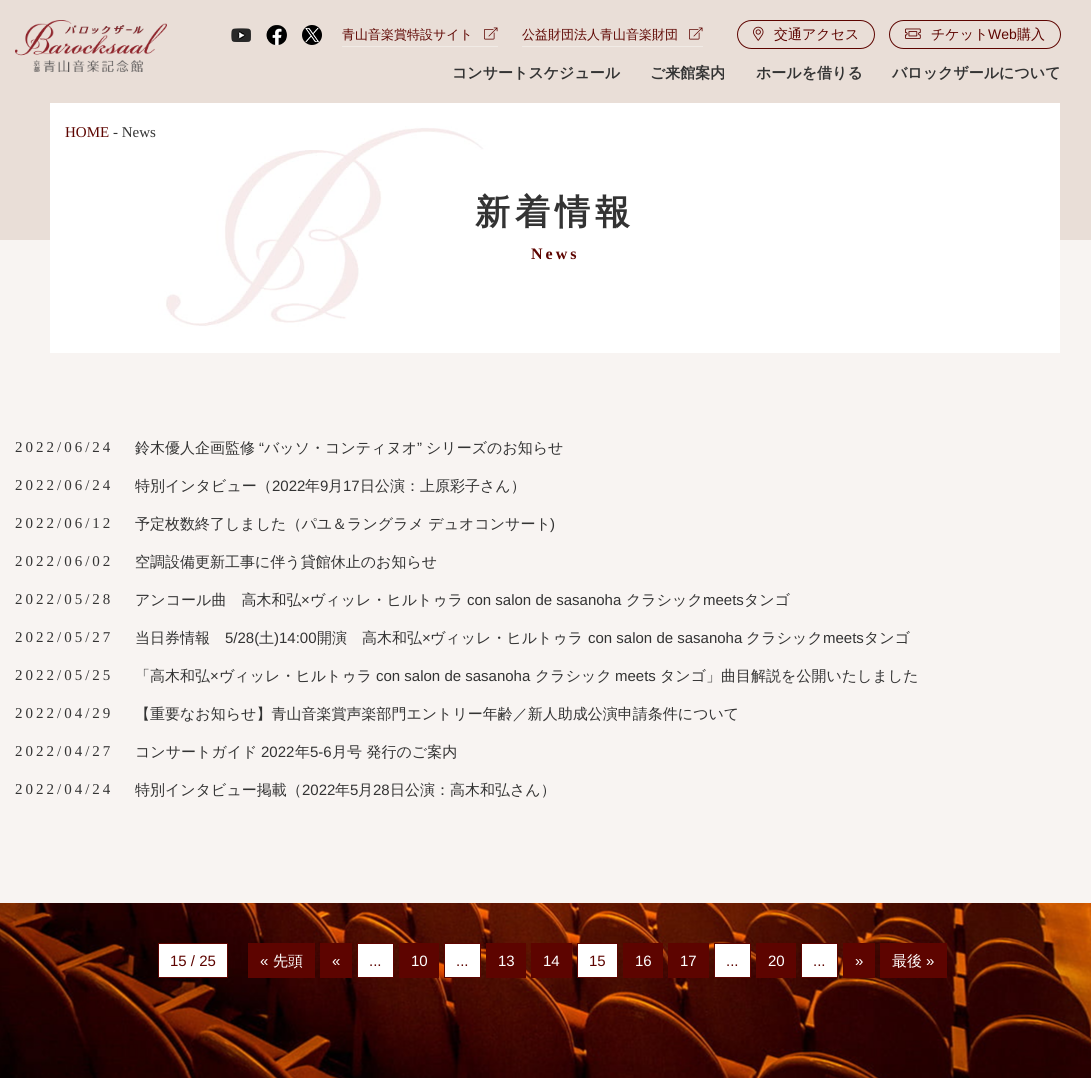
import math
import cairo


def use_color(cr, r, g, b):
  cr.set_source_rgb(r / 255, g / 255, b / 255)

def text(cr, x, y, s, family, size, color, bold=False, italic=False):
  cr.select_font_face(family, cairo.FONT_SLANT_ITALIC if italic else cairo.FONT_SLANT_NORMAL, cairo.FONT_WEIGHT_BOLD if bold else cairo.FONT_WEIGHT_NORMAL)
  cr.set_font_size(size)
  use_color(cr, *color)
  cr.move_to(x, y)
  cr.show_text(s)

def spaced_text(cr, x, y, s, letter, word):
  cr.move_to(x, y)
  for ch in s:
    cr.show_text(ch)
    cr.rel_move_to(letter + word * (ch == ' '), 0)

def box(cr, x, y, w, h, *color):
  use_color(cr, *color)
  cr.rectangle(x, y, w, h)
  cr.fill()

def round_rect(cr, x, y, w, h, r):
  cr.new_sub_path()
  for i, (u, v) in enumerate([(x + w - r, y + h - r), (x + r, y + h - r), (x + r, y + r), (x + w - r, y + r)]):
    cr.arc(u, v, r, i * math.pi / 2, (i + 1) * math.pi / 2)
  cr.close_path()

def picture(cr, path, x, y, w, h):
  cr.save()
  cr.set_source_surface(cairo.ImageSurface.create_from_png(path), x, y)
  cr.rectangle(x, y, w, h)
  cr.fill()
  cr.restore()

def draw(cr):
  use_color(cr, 255, 255, 255)
  cr.paint()
  box(cr, 0, 0, 1091, 240, 233, 222, 215)
  picture(cr, "img_01.png", 15, 20, 152, 52)
  picture(cr, "img_02.png", 231, 28, 20, 14)
  picture(cr, "img_03.png", 266, 25, 21, 20)
  picture(cr, "img_04.png", 302, 25, 20, 20)
  picture(cr, "img_05.png", 484, 27, 14, 13)
  box(cr, 342, 46, 156, 1, 241, 235, 230)
  picture(cr, "img_05.png", 689, 27, 14, 13)
  box(cr, 522, 46, 181, 1, 241, 235, 230)
  round_rect(cr, 737.5, 20.5, 137, 28, 14)
  use_color(cr, 93, 4, 0)
  cr.set_line_width(1)
  cr.stroke()
  picture(cr, "img_06.png", 753, 26, 11, 15)
  round_rect(cr, 889.5, 20.5, 171, 28, 14)
  cr.stroke()
  picture(cr, "img_07.png", 905, 28, 16, 11)
  box(cr, 0, 240, 1091, 663, 248, 244, 242)
  picture(cr, "img_08.png", 50, 103, 1010, 250)
  picture(cr, "img_09.png", 0, 903, 1091, 175)
  use_color(cr, 255, 255, 255)
  cr.rectangle(158.5, 943.5, 69, 34)
  cr.fill_preserve()
  use_color(cr, 93, 4, 0)
  cr.stroke()
  box(cr, 248, 943, 67, 35, 93, 4, 0)
  box(cr, 320, 943, 32, 35, 93, 4, 0)
  use_color(cr, 255, 255, 255)
  cr.rectangle(357.5, 943.5, 36, 34)
  cr.fill_preserve()
  use_color(cr, 93, 4, 0)
  cr.stroke()
  box(cr, 399, 943, 40, 35, 93, 4, 0)
  use_color(cr, 255, 255, 255)
  cr.rectangle(444.5, 943.5, 36, 34)
  cr.fill_preserve()
  use_color(cr, 93, 4, 0)
  cr.stroke()
  box(cr, 486, 943, 40, 35, 93, 4, 0)
  box(cr, 531, 943, 41, 35, 93, 4, 0)
  use_color(cr, 255, 255, 255)
  cr.rectangle(577.5, 943.5, 40, 34)
  cr.fill_preserve()
  use_color(cr, 93, 4, 0)
  cr.stroke()
  box(cr, 623, 943, 40, 35, 93, 4, 0)
  box(cr, 668, 943, 41, 35, 93, 4, 0)
  use_color(cr, 255, 255, 255)
  cr.rectangle(714.5, 943.5, 36, 34)
  cr.fill_preserve()
  use_color(cr, 93, 4, 0)
  cr.stroke()
  box(cr, 756, 943, 40, 35, 93, 4, 0)
  use_color(cr, 255, 255, 255)
  cr.rectangle(801.5, 943.5, 36, 34)
  cr.fill_preserve()
  use_color(cr, 93, 4, 0)
  cr.stroke()
  box(cr, 843, 943, 32, 35, 93, 4, 0)
  box(cr, 880, 943, 67, 35, 93, 4, 0)
  text(cr, 342, 39, "青山音楽賞特設サイト", "WenQuanYi Zen Hei Medium", 13, (93, 4, 0))
  text(cr, 522, 39, "公益財団法人青山音楽財団", "WenQuanYi Zen Hei Medium", 13, (93, 4, 0))
  text(cr, 774, 39, "交通アクセス", "WenQuanYi Zen Hei Medium", 14, (93, 4, 0))
  text(cr, 931, 39, "チケット", "WenQuanYi Zen Hei Medium", 14, (93, 4, 0))
  text(cr, 988, 39, "Web", "Liberation Sans", 14, (93, 4, 0))
  text(cr, 1017, 39, "購入", "WenQuanYi Zen Hei Medium", 14, (93, 4, 0))
  text(cr, 452, 78, "コンサートスケジュール", "WenQuanYi Zen Hei", 15, (51, 51, 51), bold=True)
  text(cr, 650, 78, "ご来館案内", "WenQuanYi Zen Hei", 15, (51, 51, 51), bold=True)
  text(cr, 756, 78, "ホールを借りる", "WenQuanYi Zen Hei", 15, (51, 51, 51), bold=True)
  text(cr, 892, 78, "バロックザールについて", "WenQuanYi Zen Hei", 15, (51, 51, 51), bold=True)
  text(cr, 65, 137, "HOME", "Liberation Serif", 15, (93, 4, 0))
  text(cr, 113, 137, "- News", "Liberation Serif", 15, (51, 51, 51))
  cr.select_font_face("WenQuanYi Zen Hei", cairo.FONT_SLANT_NORMAL, cairo.FONT_WEIGHT_BOLD)
  cr.set_font_size(35)
  spaced_text(cr, 475, 224, "新着情報", 5, 0)
  cr.select_font_face("Liberation Serif", cairo.FONT_SLANT_NORMAL, cairo.FONT_WEIGHT_BOLD)
  cr.set_font_size(16)
  use_color(cr, 93, 4, 0)
  spaced_text(cr, 531, 259, "News", 3, 0)
  cr.select_font_face("Liberation Serif")
  cr.set_font_size(15)
  use_color(cr, 51, 51, 51)
  spaced_text(cr, 15, 452, "2022/06/24", 3, 0)
  text(cr, 135, 453, "鈴木優人企画監修", "WenQuanYi Zen Hei Medium", 15, (51, 51, 51))
  text(cr, 259, 453, "“", "Liberation Sans", 15, (51, 51, 51))
  text(cr, 264, 453, "バッソ・コンティヌオ", "WenQuanYi Zen Hei Medium", 15, (51, 51, 51))
  text(cr, 417, 453, "”", "Liberation Sans", 15, (51, 51, 51))
  text(cr, 426, 453, "シリーズのお知らせ", "WenQuanYi Zen Hei Medium", 15, (51, 51, 51))
  cr.select_font_face("Liberation Serif")
  spaced_text(cr, 15, 490, "2022/06/24", 3, 0)
  text(cr, 135, 491, "特別インタビュー（", "WenQuanYi Zen Hei Medium", 15, (51, 51, 51))
  text(cr, 272, 491, "2022", "Liberation Sans", 15, (51, 51, 51))
  text(cr, 305, 491, "年", "WenQuanYi Zen Hei Medium", 15, (51, 51, 51))
  text(cr, 320, 491, "9", "Liberation Sans", 15, (51, 51, 51))
  text(cr, 328, 491, "月", "WenQuanYi Zen Hei Medium", 15, (51, 51, 51))
  text(cr, 343, 491, "17", "Liberation Sans", 15, (51, 51, 51))
  text(cr, 360, 491, "日公演：上原彩子さん）", "WenQuanYi Zen Hei Medium", 15, (51, 51, 51))
  cr.select_font_face("Liberation Serif")
  spaced_text(cr, 15, 528, "2022/06/12", 3, 0)
  text(cr, 135, 529, "予定枚数終了しました（パユ＆ラングラメ デュオコンサート", "WenQuanYi Zen Hei Medium", 15, (51, 51, 51))
  text(cr, 550, 529, ")", "Liberation Sans", 15, (51, 51, 51))
  cr.select_font_face("Liberation Serif")
  spaced_text(cr, 15, 566, "2022/06/02", 3, 0)
  text(cr, 135, 567, "空調設備更新工事に伴う貸館休止のお知らせ", "WenQuanYi Zen Hei Medium", 15, (51, 51, 51))
  cr.select_font_face("Liberation Serif")
  spaced_text(cr, 15, 604, "2022/05/28", 3, 0)
  text(cr, 135, 605, "アンコール曲　高木和弘", "WenQuanYi Zen Hei Medium", 15, (51, 51, 51))
  text(cr, 301, 605, "×", "Liberation Sans", 15, (51, 51, 51))
  text(cr, 310, 605, "ヴィッレ・ヒルトゥラ", "WenQuanYi Zen Hei Medium", 15, (51, 51, 51))
  text(cr, 467, 605, "con salon de sasanoha", "Liberation Sans", 15, (51, 51, 51))
  text(cr, 626, 605, "クラシック", "WenQuanYi Zen Hei Medium", 15, (51, 51, 51))
  text(cr, 703, 605, "meets", "Liberation Sans", 15, (51, 51, 51))
  text(cr, 744, 605, "タンゴ", "WenQuanYi Zen Hei Medium", 15, (51, 51, 51))
  cr.select_font_face("Liberation Serif")
  spaced_text(cr, 15, 642, "2022/05/27", 3, 0)
  text(cr, 135, 643, "当日券情報", "WenQuanYi Zen Hei Medium", 15, (51, 51, 51))
  text(cr, 225, 643, "5/28(", "Liberation Sans", 15, (51, 51, 51))
  text(cr, 259, 643, "土", "WenQuanYi Zen Hei Medium", 15, (51, 51, 51))
  text(cr, 274, 643, ")14:00", "Liberation Sans", 15, (51, 51, 51))
  text(cr, 317, 643, "開演　高木和弘", "WenQuanYi Zen Hei Medium", 15, (51, 51, 51))
  text(cr, 422, 643, "×", "Liberation Sans", 15, (51, 51, 51))
  text(cr, 430, 643, "ヴィッレ・ヒルトゥラ", "WenQuanYi Zen Hei Medium", 15, (51, 51, 51))
  text(cr, 588, 643, "con salon de sasanoha", "Liberation Sans", 15, (51, 51, 51))
  text(cr, 746, 643, "クラシック", "WenQuanYi Zen Hei Medium", 15, (51, 51, 51))
  text(cr, 823, 643, "meets", "Liberation Sans", 15, (51, 51, 51))
  text(cr, 864, 643, "タンゴ", "WenQuanYi Zen Hei Medium", 15, (51, 51, 51))
  cr.select_font_face("Liberation Serif")
  spaced_text(cr, 15, 680, "2022/05/25", 3, 0)
  text(cr, 135, 681, "「高木和弘", "WenQuanYi Zen Hei Medium", 15, (51, 51, 51))
  text(cr, 210, 681, "×", "Liberation Sans", 15, (51, 51, 51))
  text(cr, 219, 681, "ヴィッレ・ヒルトゥラ", "WenQuanYi Zen Hei Medium", 15, (51, 51, 51))
  text(cr, 376, 681, "con salon de sasanoha", "Liberation Sans", 15, (51, 51, 51))
  text(cr, 535, 681, "クラシック", "WenQuanYi Zen Hei Medium", 15, (51, 51, 51))
  text(cr, 615, 681, "meets", "Liberation Sans", 15, (51, 51, 51))
  text(cr, 660, 681, "タンゴ」曲目解説を公開いたしました", "WenQuanYi Zen Hei Medium", 15, (51, 51, 51))
  cr.select_font_face("Liberation Serif")
  spaced_text(cr, 15, 718, "2022/04/29", 3, 0)
  text(cr, 135, 719, "【重要なお知らせ】青山音楽賞声楽部門エントリー年齢／新人助成公演申請条件について", "WenQuanYi Zen Hei Medium", 15, (51, 51, 51))
  cr.select_font_face("Liberation Serif")
  spaced_text(cr, 15, 756, "2022/04/27", 3, 0)
  text(cr, 135, 757, "コンサートガイド", "WenQuanYi Zen Hei Medium", 15, (51, 51, 51))
  text(cr, 261, 757, "2022", "Liberation Sans", 15, (51, 51, 51))
  text(cr, 295, 757, "年", "WenQuanYi Zen Hei Medium", 15, (51, 51, 51))
  text(cr, 310, 757, "5-6", "Liberation Sans", 15, (51, 51, 51))
  text(cr, 332, 757, "月号 発行のご案内", "WenQuanYi Zen Hei Medium", 15, (51, 51, 51))
  cr.select_font_face("Liberation Serif")
  spaced_text(cr, 15, 794, "2022/04/24", 3, 0)
  text(cr, 135, 795, "特別インタビュー掲載（", "WenQuanYi Zen Hei Medium", 15, (51, 51, 51))
  text(cr, 302, 795, "2022", "Liberation Sans", 15, (51, 51, 51))
  text(cr, 335, 795, "年", "WenQuanYi Zen Hei Medium", 15, (51, 51, 51))
  text(cr, 350, 795, "5", "Liberation Sans", 15, (51, 51, 51))
  text(cr, 358, 795, "月", "WenQuanYi Zen Hei Medium", 15, (51, 51, 51))
  text(cr, 373, 795, "28", "Liberation Sans", 15, (51, 51, 51))
  text(cr, 390, 795, "日公演：高木和弘さん）", "WenQuanYi Zen Hei Medium", 15, (51, 51, 51))
  text(cr, 170, 966, "15 / 25", "Liberation Sans", 15, (93, 4, 0))
  text(cr, 260, 966, "«", "Liberation Sans", 15, (255, 255, 255))
  text(cr, 273, 966, "先頭", "WenQuanYi Zen Hei Medium", 15, (255, 255, 255))
  text(cr, 332, 966, "«", "Liberation Sans", 15, (255, 255, 255))
  text(cr, 369, 966, "...", "Liberation Sans", 15, (93, 4, 0))
  text(cr, 411, 966, "10", "Liberation Sans", 15, (255, 255, 255))
  text(cr, 456, 966, "...", "Liberation Sans", 15, (93, 4, 0))
  text(cr, 498, 966, "13", "Liberation Sans", 15, (255, 255, 255))
  text(cr, 543, 966, "14", "Liberation Sans", 15, (255, 255, 255))
  text(cr, 589, 966, "15", "Liberation Sans", 15, (93, 4, 0))
  text(cr, 635, 966, "16", "Liberation Sans", 15, (255, 255, 255))
  text(cr, 680, 966, "17", "Liberation Sans", 15, (255, 255, 255))
  text(cr, 726, 966, "...", "Liberation Sans", 15, (93, 4, 0))
  text(cr, 768, 966, "20", "Liberation Sans", 15, (255, 255, 255))
  text(cr, 813, 966, "...", "Liberation Sans", 15, (93, 4, 0))
  text(cr, 855, 966, "»", "Liberation Sans", 15, (255, 255, 255))
  text(cr, 892, 966, "最後", "WenQuanYi Zen Hei Medium", 15, (255, 255, 255))
  text(cr, 926, 966, "»", "Liberation Sans", 15, (255, 255, 255))


surface = cairo.ImageSurface(cairo.FORMAT_RGB24, 1091, 1078)
cr = cairo.Context(surface)
options = cairo.FontOptions()
options.set_hint_metrics(cairo.HINT_METRICS_OFF)
options.set_hint_style(cairo.HINT_STYLE_NONE)
cr.set_font_options(options)
cr.set_miter_limit(4)
draw(cr)
surface.write_to_png("out.png")
